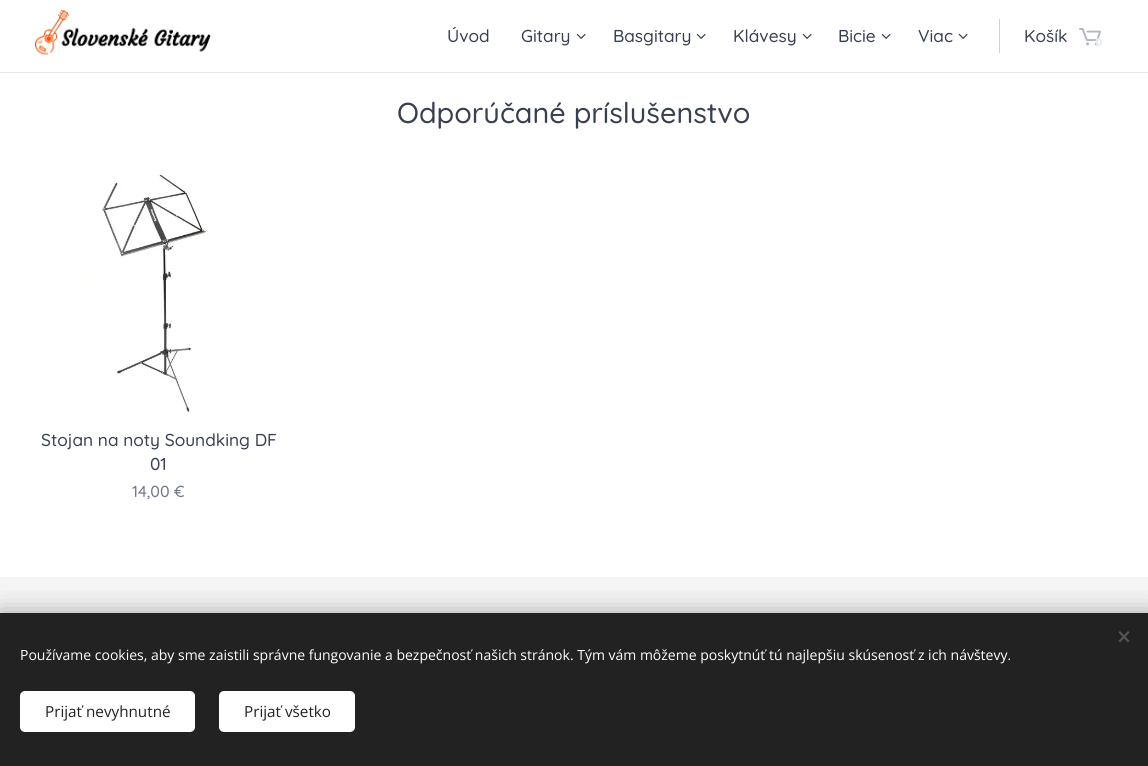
import math
import cairo


def use_color(cr, r, g, b):
  cr.set_source_rgb(r / 255, g / 255, b / 255)

def text(cr, x, y, s, family, size, color, bold=False, italic=False):
  cr.select_font_face(family, cairo.FONT_SLANT_ITALIC if italic else cairo.FONT_SLANT_NORMAL, cairo.FONT_WEIGHT_BOLD if bold else cairo.FONT_WEIGHT_NORMAL)
  cr.set_font_size(size)
  use_color(cr, *color)
  cr.move_to(x, y)
  cr.show_text(s)

def box(cr, x, y, w, h, *color):
  use_color(cr, *color)
  cr.rectangle(x, y, w, h)
  cr.fill()

def round_rect(cr, x, y, w, h, r):
  cr.new_sub_path()
  for i, (u, v) in enumerate([(x + w - r, y + h - r), (x + r, y + h - r), (x + r, y + r), (x + w - r, y + r)]):
    cr.arc(u, v, r, i * math.pi / 2, (i + 1) * math.pi / 2)
  cr.close_path()

def shadow(cr, x, y, w, h, r, blur, alpha):
  cr.push_group_with_content(cairo.CONTENT_ALPHA)
  cr.set_operator(cairo.OPERATOR_SOURCE)
  for i in range(15, -16, -2):
    e = blur * i / 6
    if min(w, h) + 2 * e > 0:
      cr.set_source_rgba(0, 0, 0, alpha * math.erfc((i - 1) / 8.5) / 2)
      round_rect(cr, x - e, y - e, w + 2 * e, h + 2 * e, max(0, min(r + e + blur * .6, min(w, h) / 2 + e)))
      cr.fill()
  cr.mask(cr.pop_group())

def picture(cr, path, x, y, w, h):
  cr.save()
  cr.set_source_surface(cairo.ImageSurface.create_from_png(path), x, y)
  cr.rectangle(x, y, w, h)
  cr.fill()
  cr.restore()

def draw(cr):
  use_color(cr, 255, 255, 255)
  cr.paint()
  box(cr, 0, 72, 1148, 1, 232, 232, 232)
  picture(cr, "img_01.png", 35, 10, 176, 45)
  picture(cr, "img_02.png", 576, 33, 10, 6)
  picture(cr, "img_02.png", 696, 33, 10, 6)
  picture(cr, "img_02.png", 802, 33, 10, 6)
  picture(cr, "img_02.png", 881, 33, 10, 6)
  picture(cr, "img_02.png", 958, 33, 10, 6)
  box(cr, 999, 19, 1, 34, 209, 209, 209)
  picture(cr, "img_03.png", 1079, 28, 22, 18)
  picture(cr, "img_04.png", 84, 174, 142, 238)
  box(cr, 0, 577, 1148, 36, 245, 245, 245)
  use_color(cr, 0, 0, 0)
  shadow(cr, 0, 613, 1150, 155, 0, 12.5, 0.33)
  box(cr, 0, 613, 1148, 153, 34, 34, 34)
  use_color(cr, 85, 85, 85)
  cr.new_path()
  cr.move_to(1118.5, 641)
  cr.line_to(1128, 631)
  cr.line_to(1129.5, 632.5)
  cr.line_to(1120, 642.5)
  cr.close_path()
  cr.fill()
  cr.new_path()
  cr.move_to(1120, 631)
  cr.line_to(1129.5, 641)
  cr.line_to(1128, 642.5)
  cr.line_to(1118.5, 632.5)
  cr.close_path()
  cr.fill()
  use_color(cr, 255, 255, 255)
  round_rect(cr, 20, 691, 175, 41, 5)
  cr.fill()
  round_rect(cr, 219, 691, 136, 41, 5)
  cr.fill()
  text(cr, 447, 42, "Úvod", "Quicksand Medium", 17.25, (55, 63, 81))
  text(cr, 521, 42, "Gitary", "Quicksand Medium", 17.25, (55, 63, 81))
  text(cr, 613, 42, "Basgitary", "Quicksand Medium", 17.25, (55, 63, 81))
  text(cr, 733, 42, "Klávesy", "Quicksand Medium", 17.25, (55, 63, 81))
  text(cr, 838, 42, "Bicie", "Quicksand Medium", 17.25, (55, 63, 81))
  text(cr, 918, 42, "Viac", "Quicksand Medium", 17.25, (55, 63, 81))
  text(cr, 1024, 42, "Košík", "Quicksand Medium", 17.25, (55, 63, 81))
  text(cr, 1095, 46, "0", "Montserrat", 11, (235, 236, 239), bold=True)
  text(cr, 397, 123, "Odporúčané príslušenstvo", "Quicksand Medium", 28.75, (55, 63, 81))
  text(cr, 41, 446, "Stojan na noty Soundking DF", "Quicksand Medium", 17.25, (55, 63, 81))
  text(cr, 150, 470, "01", "Quicksand Medium", 17.25, (55, 63, 81))
  text(cr, 132, 497, "14,00 €", "Quicksand Medium", 16, (112, 119, 134))
  text(cr, 20, 660, "Používame cookies, aby sme zaistili správne fungovanie a bezpečnosť našich stránok. Tým vám môžeme poskytnúť tú najlepšiu skúsenosť z ich návštevy.", "Open Sans", 14, (255, 255, 255))
  text(cr, 45, 717, "Prijať nevyhnutné", "Open Sans", 15.25, (34, 34, 34))
  text(cr, 244, 717, "Prijať všetko", "Open Sans", 15.25, (34, 34, 34))


surface = cairo.ImageSurface(cairo.FORMAT_RGB24, 1148, 766)
cr = cairo.Context(surface)
options = cairo.FontOptions()
options.set_hint_metrics(cairo.HINT_METRICS_OFF)
options.set_hint_style(cairo.HINT_STYLE_NONE)
cr.set_font_options(options)
cr.set_miter_limit(4)
draw(cr)
surface.write_to_png("out.png")
